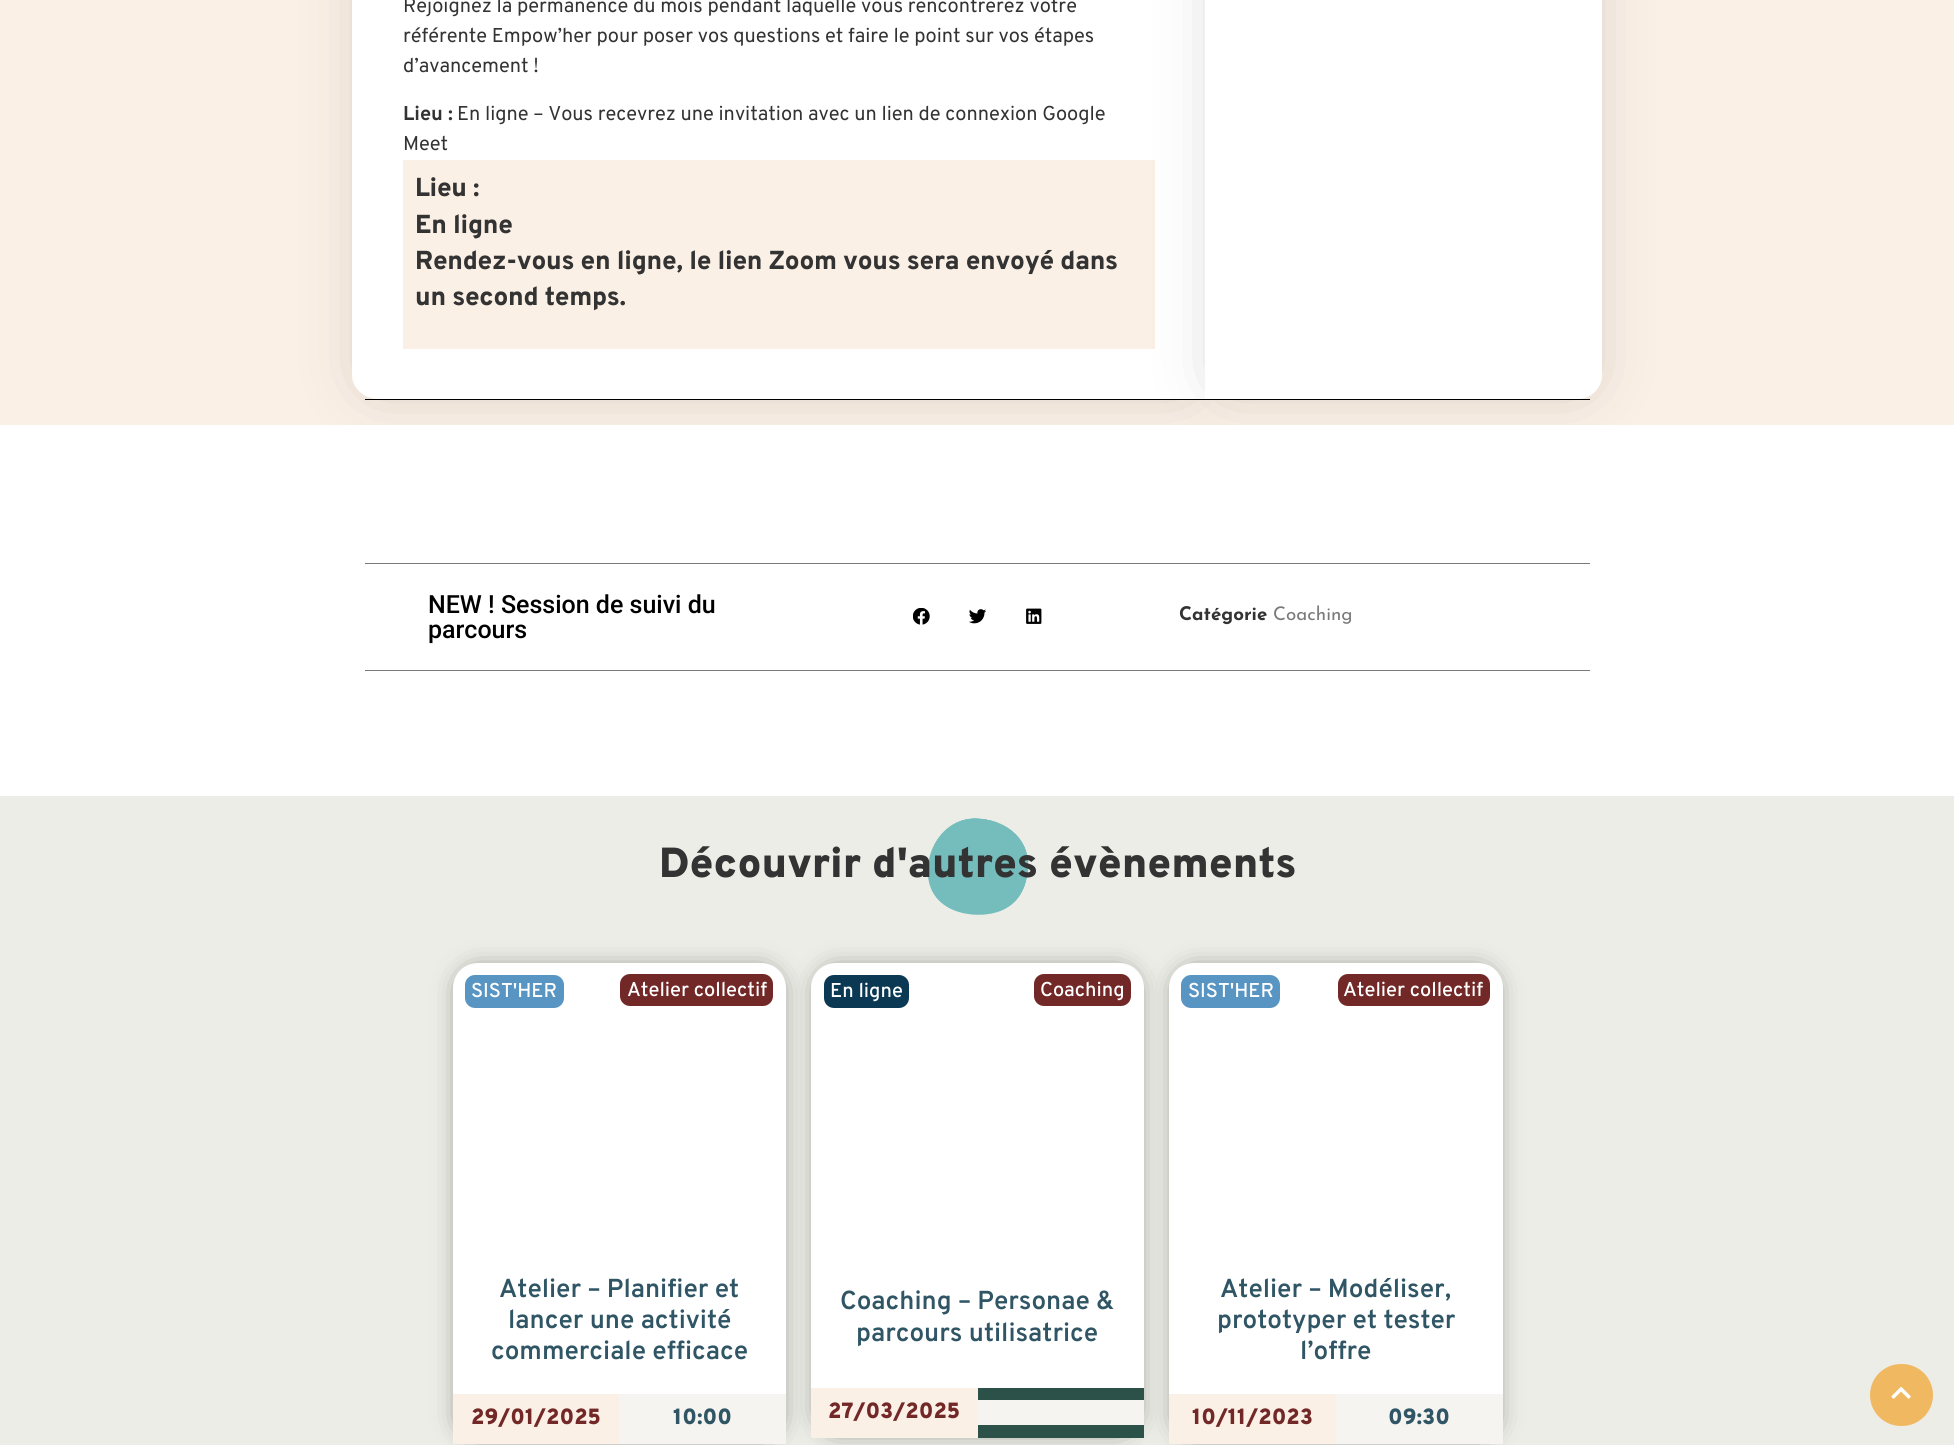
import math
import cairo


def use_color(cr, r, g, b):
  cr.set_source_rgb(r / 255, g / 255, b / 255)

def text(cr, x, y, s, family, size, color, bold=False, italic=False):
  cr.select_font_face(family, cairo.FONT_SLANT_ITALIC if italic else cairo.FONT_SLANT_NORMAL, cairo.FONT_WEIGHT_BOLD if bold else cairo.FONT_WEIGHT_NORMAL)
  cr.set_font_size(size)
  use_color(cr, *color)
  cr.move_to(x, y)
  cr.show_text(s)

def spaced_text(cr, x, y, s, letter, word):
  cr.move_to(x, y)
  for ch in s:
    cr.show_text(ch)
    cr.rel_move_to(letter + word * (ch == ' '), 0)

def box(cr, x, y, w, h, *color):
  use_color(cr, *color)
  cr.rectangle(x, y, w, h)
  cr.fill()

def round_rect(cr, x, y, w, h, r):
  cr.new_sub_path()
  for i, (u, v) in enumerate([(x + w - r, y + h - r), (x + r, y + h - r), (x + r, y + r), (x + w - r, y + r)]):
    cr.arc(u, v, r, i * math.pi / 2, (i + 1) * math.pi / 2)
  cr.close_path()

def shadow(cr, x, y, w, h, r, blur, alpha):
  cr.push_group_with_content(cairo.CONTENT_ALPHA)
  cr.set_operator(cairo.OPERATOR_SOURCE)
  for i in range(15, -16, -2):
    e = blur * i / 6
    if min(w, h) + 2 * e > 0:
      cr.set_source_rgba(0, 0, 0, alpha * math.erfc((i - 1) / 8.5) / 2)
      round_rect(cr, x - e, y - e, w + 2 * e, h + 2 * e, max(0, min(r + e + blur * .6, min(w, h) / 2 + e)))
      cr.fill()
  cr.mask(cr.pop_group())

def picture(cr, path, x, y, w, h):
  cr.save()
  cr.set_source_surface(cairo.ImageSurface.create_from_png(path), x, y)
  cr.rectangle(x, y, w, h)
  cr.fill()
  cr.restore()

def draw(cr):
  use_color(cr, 251, 240, 230)
  cr.paint()
  use_color(cr, 0, 0, 0)
  shadow(cr, 365, -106, 828, 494, 13, 31, 0.17)
  use_color(cr, 255, 255, 255)
  cr.new_path()
  cr.move_to(378, -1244)
  cr.line_to(1205, -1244)
  cr.line_to(1205, 399)
  cr.line_to(378, 399)
  cr.curve_to(364, 399, 352, 388, 352, 375)
  cr.line_to(352, -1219)
  cr.curve_to(352, -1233, 364, -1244, 378, -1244)
  cr.close_path()
  cr.fill()
  box(cr, 365, 399, 840, 1, 0, 0, 0)
  box(cr, 403, 160, 752, 189, 251, 240, 230)
  use_color(cr, 0, 0, 0)
  shadow(cr, 1218, -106, 372, 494, 13, 31, 0.17)
  use_color(cr, 255, 255, 255)
  cr.new_path()
  cr.move_to(1205, -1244)
  cr.line_to(1578, -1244)
  cr.curve_to(1591, -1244, 1602, -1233, 1602, -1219)
  cr.line_to(1602, 375)
  cr.curve_to(1602, 388, 1591, 399, 1578, 399)
  cr.line_to(1205, 399)
  cr.close_path()
  cr.fill()
  box(cr, 1205, 399, 385, 1, 0, 0, 0)
  box(cr, 0, 425, 1954, 371, 255, 255, 255)
  box(cr, 365, 563, 1225, 1, 122, 122, 122)
  box(cr, 365, 670, 1225, 1, 122, 122, 122)
  picture(cr, "img_01.png", 913, 608, 17, 17)
  picture(cr, "img_02.png", 969, 609, 17, 15)
  picture(cr, "img_03.png", 1026, 608, 16, 16)
  box(cr, 0, 796, 1954, 649, 237, 237, 231)
  picture(cr, "img_04.png", 927, 818, 102, 97)
  use_color(cr, 0, 0, 0)
  shadow(cr, 461, 971, 317, 464, 16, 13, 0.5)
  use_color(cr, 255, 255, 255)
  cr.new_path()
  cr.move_to(478, 963)
  cr.line_to(761, 963)
  cr.curve_to(775, 963, 786, 974, 786, 988)
  cr.line_to(786, 1444)
  cr.line_to(453, 1444)
  cr.line_to(453, 988)
  cr.curve_to(453, 974, 464, 963, 478, 963)
  cr.close_path()
  cr.fill()
  use_color(cr, 88, 149, 195)
  round_rect(cr, 465, 975, 99, 33, 10)
  cr.fill()
  use_color(cr, 115, 40, 40)
  round_rect(cr, 620, 974, 153, 32, 10)
  cr.fill()
  box(cr, 453, 1394, 166, 50, 251, 240, 230)
  box(cr, 619, 1394, 167, 50, 245, 244, 240)
  use_color(cr, 0, 0, 0)
  shadow(cr, 820, 971, 315, 458, 16, 13, 0.5)
  use_color(cr, 255, 255, 255)
  cr.new_path()
  cr.move_to(836, 963)
  cr.line_to(1119, 963)
  cr.curve_to(1133, 963, 1144, 974, 1144, 988)
  cr.line_to(1144, 1438)
  cr.line_to(811, 1438)
  cr.line_to(811, 988)
  cr.curve_to(811, 974, 822, 963, 836, 963)
  cr.close_path()
  cr.fill()
  use_color(cr, 11, 57, 84)
  round_rect(cr, 824, 975, 85, 33, 10)
  cr.fill()
  use_color(cr, 115, 40, 40)
  round_rect(cr, 1034, 974, 97, 32, 10)
  cr.fill()
  box(cr, 811, 1388, 167, 50, 251, 240, 230)
  box(cr, 978, 1388, 166, 50, 44, 81, 72)
  box(cr, 978, 1400, 166, 25, 245, 244, 240)
  use_color(cr, 0, 0, 0)
  shadow(cr, 1178, 971, 316, 464, 16, 13, 0.5)
  use_color(cr, 255, 255, 255)
  cr.new_path()
  cr.move_to(1194, 963)
  cr.line_to(1478, 963)
  cr.curve_to(1492, 963, 1503, 974, 1503, 988)
  cr.line_to(1503, 1444)
  cr.line_to(1169, 1444)
  cr.line_to(1169, 988)
  cr.curve_to(1169, 974, 1180, 963, 1194, 963)
  cr.close_path()
  cr.fill()
  use_color(cr, 88, 149, 195)
  round_rect(cr, 1181, 975, 99, 33, 10)
  cr.fill()
  use_color(cr, 115, 40, 40)
  round_rect(cr, 1338, 974, 152, 32, 10)
  cr.fill()
  box(cr, 1169, 1394, 167, 50, 251, 240, 230)
  box(cr, 1336, 1394, 167, 50, 245, 244, 240)
  use_color(cr, 241, 184, 98)
  round_rect(cr, 1870, 1364, 63, 62, 31)
  cr.fill()
  picture(cr, "img_05.png", 1891, 1387, 20, 12)
  text(cr, 403, 12, "Rejoignez la permanence du mois pendant laquelle vous rencontrerez votre", "Overpass", 20, (51, 51, 51))
  text(cr, 403, 42, "référente Empow’her pour poser vos questions et faire le point sur vos étapes", "Overpass", 20, (51, 51, 51))
  text(cr, 403, 72, "d’avancement !", "Overpass", 20, (51, 51, 51))
  text(cr, 403, 120, "Lieu :", "Overpass", 20, (51, 51, 51), bold=True)
  text(cr, 457, 120, "En ligne – Vous recevrez une invitation avec un lien de connexion Google", "Overpass", 20, (51, 51, 51))
  text(cr, 403, 150, "Meet", "Overpass", 20, (51, 51, 51))
  cr.select_font_face("Overpass ExtraBold")
  cr.set_font_size(26)
  spaced_text(cr, 415, 196, "Lieu :", -0.25, 0)
  spaced_text(cr, 415, 233, "En ligne", -0.25, 0)
  spaced_text(cr, 415, 269, "Rendez-vous en ligne, le lien Zoom vous sera envoyé dans", -0.25, 0)
  spaced_text(cr, 415, 305, "un second temps.", -0.25, 0)
  text(cr, 428, 613, "NEW ! Session de suivi du", "Roboto Medium", 25, (0, 0, 0))
  text(cr, 428, 638, "parcours", "Roboto Medium", 25, (0, 0, 0))
  text(cr, 1179, 620, "Catégorie", "Josefin Sans", 18.75, (51, 51, 51), bold=True)
  text(cr, 1273, 620, "Coaching", "Josefin Sans", 18.75, (122, 122, 122))
  text(cr, 659, 877, "Découvrir d'autres évènements", "Overpass Black", 42, (51, 51, 51))
  text(cr, 471, 997, "SIST'HER", "Overpass Medium", 20, (255, 255, 255))
  text(cr, 627, 996, "Atelier collectif", "Overpass Medium", 20, (255, 255, 255))
  text(cr, 499, 1297, "Atelier – Planifier et", "Overpass SemiBold", 26, (48, 86, 102))
  text(cr, 508, 1328, "lancer une activité", "Overpass SemiBold", 26, (48, 86, 102))
  text(cr, 491, 1359, "commerciale efficace", "Overpass SemiBold", 26, (48, 86, 102))
  text(cr, 471, 1424, "29/01/2025", "Overpass Black", 22, (115, 40, 40))
  text(cr, 673, 1424, "10:00", "Overpass Black", 22, (48, 86, 102))
  text(cr, 830, 997, "En ligne", "Overpass Medium", 20, (255, 255, 255))
  text(cr, 1040, 996, "Coaching", "Overpass Medium", 20, (255, 255, 255))
  text(cr, 840, 1309, "Coaching – Personae &", "Overpass SemiBold", 26, (48, 86, 102))
  text(cr, 856, 1341, "parcours utilisatrice", "Overpass SemiBold", 26, (48, 86, 102))
  text(cr, 828, 1418, "27/03/2025", "Overpass Black", 22, (115, 40, 40))
  text(cr, 1188, 997, "SIST'HER", "Overpass Medium", 20, (255, 255, 255))
  text(cr, 1343, 996, "Atelier collectif", "Overpass Medium", 20, (255, 255, 255))
  text(cr, 1220, 1297, "Atelier – Modéliser,", "Overpass SemiBold", 26, (48, 86, 102))
  text(cr, 1217, 1328, "prototyper et tester", "Overpass SemiBold", 26, (48, 86, 102))
  text(cr, 1300, 1359, "l’offre", "Overpass SemiBold", 26, (48, 86, 102))
  text(cr, 1192, 1424, "10/11/2023", "Overpass Black", 22, (115, 40, 40))
  text(cr, 1388, 1424, "09:30", "Overpass Black", 22, (48, 86, 102))


surface = cairo.ImageSurface(cairo.FORMAT_RGB24, 1954, 1445)
cr = cairo.Context(surface)
options = cairo.FontOptions()
options.set_hint_metrics(cairo.HINT_METRICS_OFF)
options.set_hint_style(cairo.HINT_STYLE_NONE)
cr.set_font_options(options)
cr.set_miter_limit(4)
draw(cr)
surface.write_to_png("out.png")
